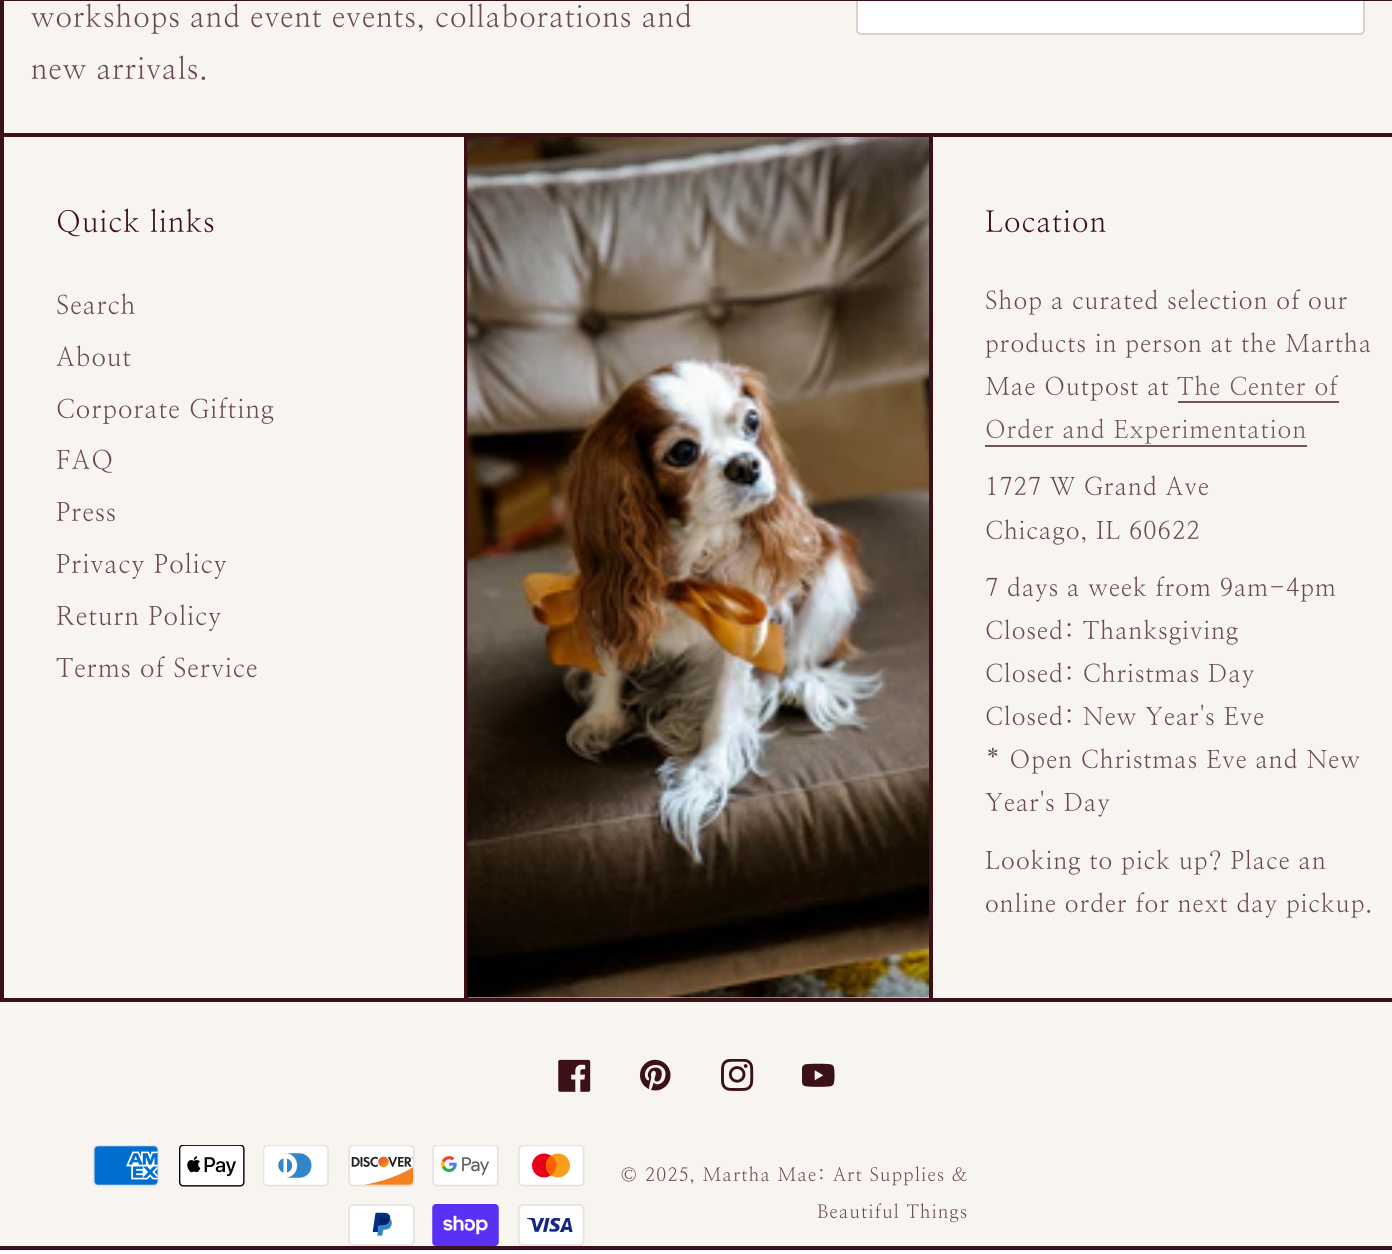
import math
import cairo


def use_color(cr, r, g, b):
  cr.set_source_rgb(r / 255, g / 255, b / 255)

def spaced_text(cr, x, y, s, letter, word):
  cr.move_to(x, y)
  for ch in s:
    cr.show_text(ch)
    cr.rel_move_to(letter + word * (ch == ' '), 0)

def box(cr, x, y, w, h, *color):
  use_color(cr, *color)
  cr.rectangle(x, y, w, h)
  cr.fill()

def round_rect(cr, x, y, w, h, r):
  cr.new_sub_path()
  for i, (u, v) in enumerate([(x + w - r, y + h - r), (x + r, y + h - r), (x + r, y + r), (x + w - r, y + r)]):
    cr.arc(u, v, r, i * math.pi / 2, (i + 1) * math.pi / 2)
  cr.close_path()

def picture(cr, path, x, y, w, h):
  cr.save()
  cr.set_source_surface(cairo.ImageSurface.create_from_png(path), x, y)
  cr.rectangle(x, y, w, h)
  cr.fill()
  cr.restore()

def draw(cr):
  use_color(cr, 255, 255, 255)
  cr.paint()
  box(cr, 0, 133, 1392, 4, 59, 17, 23)
  box(cr, 0, 0, 4, 137, 59, 17, 23)
  box(cr, 4, 1, 1388, 132, 248, 245, 241)
  use_color(cr, 255, 255, 255)
  round_rect(cr, 858, -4, 505, 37, 4)
  cr.fill()
  round_rect(cr, 857, -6, 507, 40, 4)
  cr.set_source_rgba(0.231, 0.067, 0.09, 0.15)
  cr.stroke()
  box(cr, 0, 0, 1392, 1, 59, 17, 23)
  box(cr, 0, 137, 1392, 1109, 248, 245, 241)
  box(cr, 0, 1246, 1392, 4, 59, 17, 23)
  box(cr, 0, 137, 4, 861, 59, 17, 23)
  box(cr, 464, 137, 4, 861, 59, 17, 23)
  picture(cr, "img_01.png", 467, 137, 462, 861)
  box(cr, 929, 137, 4, 861, 59, 17, 23)
  box(cr, 1178, 401, 161, 2, 116, 85, 88)
  box(cr, 985, 445, 322, 2, 116, 85, 88)
  box(cr, 0, 998, 1392, 4, 59, 17, 23)
  picture(cr, "img_02.png", 558, 1059, 33, 33)
  picture(cr, "img_03.png", 639, 1059, 32, 32)
  picture(cr, "img_04.png", 721, 1059, 33, 32)
  picture(cr, "img_05.png", 802, 1063, 33, 24)
  picture(cr, "img_06.png", 93, 1145, 66, 42)
  picture(cr, "img_07.png", 179, 1145, 66, 42)
  picture(cr, "img_08.png", 263, 1145, 66, 42)
  picture(cr, "img_09.png", 348, 1145, 67, 42)
  picture(cr, "img_10.png", 432, 1145, 67, 42)
  picture(cr, "img_11.png", 518, 1145, 67, 42)
  picture(cr, "img_12.png", 348, 1204, 67, 42)
  picture(cr, "img_13.png", 432, 1204, 67, 42)
  picture(cr, "img_14.png", 518, 1204, 67, 42)
  cr.select_font_face("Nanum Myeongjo")
  cr.set_font_size(29.4)
  use_color(cr, 106, 74, 78)
  spaced_text(cr, 31, 27, "workshops and event events, collaborations and", 1.1, 0)
  spaced_text(cr, 31, 79, "new arrivals.", 1.1, 0)
  use_color(cr, 59, 17, 23)
  spaced_text(cr, 56, 232, "Quick links", 1.1, 0)
  cr.set_font_size(25.75)
  use_color(cr, 106, 74, 78)
  spaced_text(cr, 56, 314, "Search", 1.1, 0)
  spaced_text(cr, 56, 366, "About", 1.1, 0)
  spaced_text(cr, 56, 418, "Corporate Gifting", 1.1, 0)
  spaced_text(cr, 56, 469, "FAQ", 1.1, 0)
  spaced_text(cr, 56, 521, "Press", 1.1, 0)
  spaced_text(cr, 56, 573, "Privacy Policy", 1.1, 0)
  spaced_text(cr, 56, 625, "Return Policy", 1.1, 0)
  spaced_text(cr, 56, 677, "Terms of Service", 1.1, 0)
  cr.set_font_size(29.4)
  use_color(cr, 59, 17, 23)
  spaced_text(cr, 985, 232, "Location", 1.1, 0)
  cr.set_font_size(24.5)
  use_color(cr, 106, 74, 78)
  spaced_text(cr, 985, 309, "Shop a curated selection of our", 1.1, 0)
  spaced_text(cr, 985, 352, "products in person at the Martha", 1.1, 0)
  spaced_text(cr, 985, 395, "Mae Outpost at", 1.1, 0)
  use_color(cr, 116, 85, 88)
  spaced_text(cr, 1177, 395, "The Center of", 1.1, 0)
  spaced_text(cr, 985, 438, "Order and Experimentation", 1.1, 0)
  use_color(cr, 106, 74, 78)
  spaced_text(cr, 985, 495, "1727 W Grand Ave", 1.1, 0)
  spaced_text(cr, 985, 539, "Chicago, IL 60622", 1.1, 0)
  spaced_text(cr, 985, 596, "7 days a week from 9am-4pm", 1.1, 0)
  spaced_text(cr, 985, 639, "Closed: Thanksgiving", 1.1, 0)
  spaced_text(cr, 985, 682, "Closed: Christmas Day", 1.1, 0)
  spaced_text(cr, 985, 725, "Closed: New Year's Eve", 1.1, 0)
  spaced_text(cr, 985, 768, "* Open Christmas Eve and New", 1.1, 0)
  spaced_text(cr, 985, 811, "Year's Day", 1.1, 0)
  spaced_text(cr, 985, 869, "Looking to pick up? Place an", 1.1, 0)
  spaced_text(cr, 985, 912, "online order for next day pickup.", 1.1, 0)
  cr.set_font_size(18.4)
  spaced_text(cr, 620, 1181, "© 2025, Martha Mae: Art Supplies &", 1.3, 0)
  spaced_text(cr, 817, 1218, "Beautiful Things", 1.3, 0)


surface = cairo.ImageSurface(cairo.FORMAT_RGB24, 1392, 1254)
cr = cairo.Context(surface)
options = cairo.FontOptions()
options.set_hint_metrics(cairo.HINT_METRICS_OFF)
options.set_hint_style(cairo.HINT_STYLE_NONE)
cr.set_font_options(options)
cr.set_miter_limit(4)
draw(cr)
surface.write_to_png("out.png")
